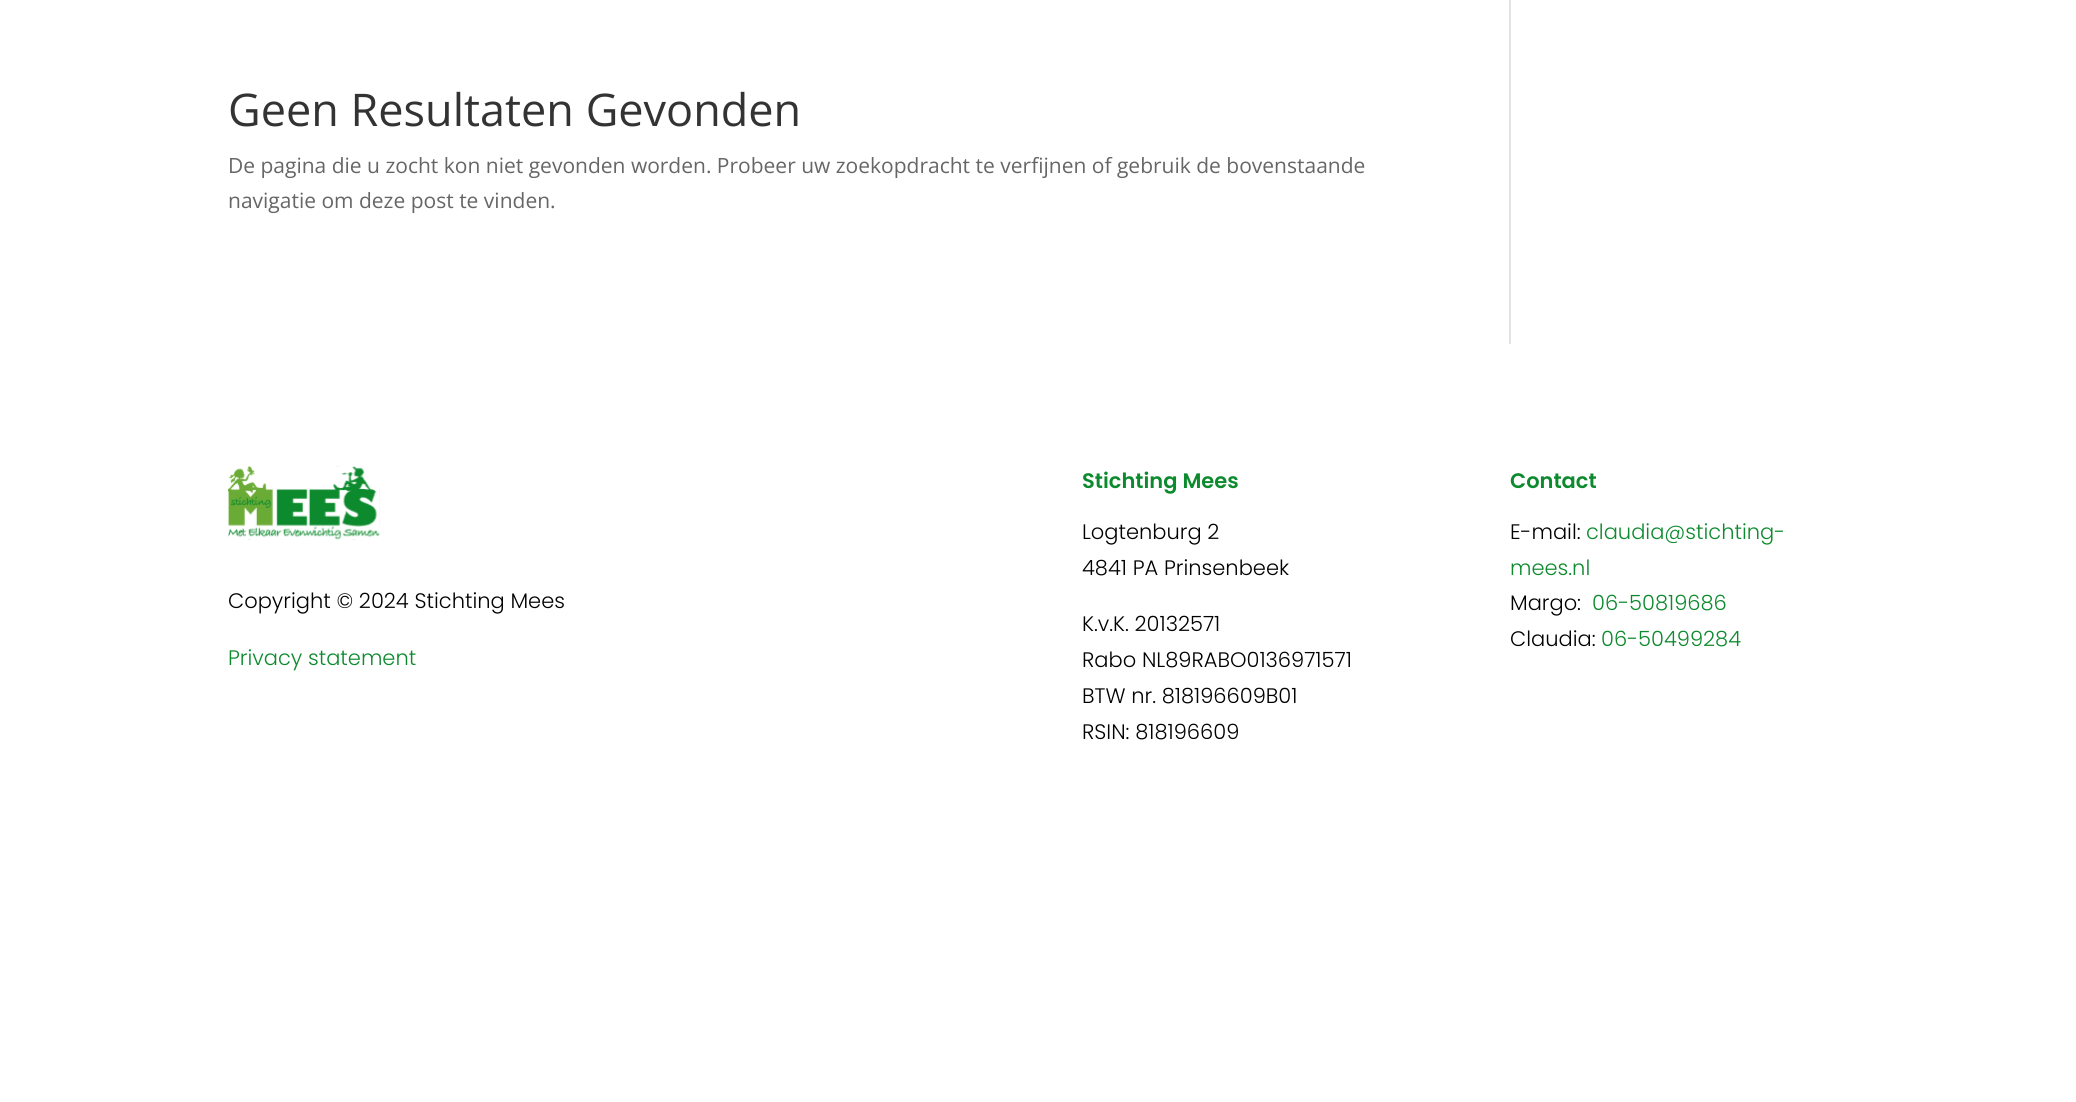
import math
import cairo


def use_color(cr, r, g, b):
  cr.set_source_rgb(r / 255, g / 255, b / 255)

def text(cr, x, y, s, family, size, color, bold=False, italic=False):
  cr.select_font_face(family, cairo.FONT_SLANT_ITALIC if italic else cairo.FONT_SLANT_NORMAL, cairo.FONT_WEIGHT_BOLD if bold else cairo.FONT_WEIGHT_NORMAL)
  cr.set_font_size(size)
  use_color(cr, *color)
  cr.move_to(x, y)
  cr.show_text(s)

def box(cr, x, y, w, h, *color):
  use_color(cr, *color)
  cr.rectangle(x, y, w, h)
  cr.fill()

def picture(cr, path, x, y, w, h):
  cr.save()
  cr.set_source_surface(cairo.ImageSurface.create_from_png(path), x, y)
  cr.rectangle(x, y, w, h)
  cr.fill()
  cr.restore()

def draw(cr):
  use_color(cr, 255, 255, 255)
  cr.paint()
  box(cr, 1509, 0, 2, 344, 226, 226, 226)
  picture(cr, "img_01.png", 228, 466, 152, 74)
  text(cr, 228, 126, "Geen Resultaten Gevonden", "Open Sans", 45, (51, 51, 51))
  text(cr, 228, 173, "De pagina die u zocht kon niet gevonden worden. Probeer uw zoekopdracht te verfijnen of gebruik de bovenstaande", "Open Sans", 21, (102, 102, 102))
  text(cr, 228, 208, "navigatie om deze post te vinden.", "Open Sans", 21, (102, 102, 102))
  text(cr, 228, 608, "Copyright © 2024 Stichting Mees", "Poppins Light", 21, (0, 0, 0))
  text(cr, 228, 665, "Privacy statement", "Poppins Light", 21, (12, 138, 45))
  text(cr, 1082, 488, "Stichting Mees", "Poppins SemiBold", 21, (12, 138, 45))
  text(cr, 1082, 539, "Logtenburg 2", "Poppins Light", 21, (0, 0, 0))
  text(cr, 1082, 575, "4841 PA Prinsenbeek", "Poppins Light", 21, (0, 0, 0))
  text(cr, 1082, 631, "K.v.K. 20132571", "Poppins Light", 21, (0, 0, 0))
  text(cr, 1082, 667, "Rabo NL89RABO0136971571", "Poppins Light", 21, (0, 0, 0))
  text(cr, 1082, 703, "BTW nr. 818196609B01", "Poppins Light", 21, (0, 0, 0))
  text(cr, 1082, 739, "RSIN: 818196609", "Poppins Light", 21, (0, 0, 0))
  text(cr, 1510, 488, "Contact", "Poppins SemiBold", 21, (12, 138, 45))
  text(cr, 1510, 539, "E-mail:", "Poppins Light", 21, (0, 0, 0))
  text(cr, 1586, 539, "claudia@stichting-", "Poppins Light", 21, (12, 138, 45))
  text(cr, 1510, 575, "mees.nl", "Poppins Light", 21, (12, 138, 45))
  text(cr, 1510, 610, "Margo:", "Poppins Light", 21, (0, 0, 0))
  text(cr, 1592, 610, "06-50819686", "Poppins Light", 21, (12, 138, 45))
  text(cr, 1510, 646, "Claudia:", "Poppins Light", 21, (0, 0, 0))
  text(cr, 1601, 646, "06-50499284", "Poppins Light", 21, (12, 138, 45))


surface = cairo.ImageSurface(cairo.FORMAT_RGB24, 2076, 1102)
cr = cairo.Context(surface)
options = cairo.FontOptions()
options.set_hint_metrics(cairo.HINT_METRICS_OFF)
options.set_hint_style(cairo.HINT_STYLE_NONE)
cr.set_font_options(options)
cr.set_miter_limit(4)
draw(cr)
surface.write_to_png("out.png")
